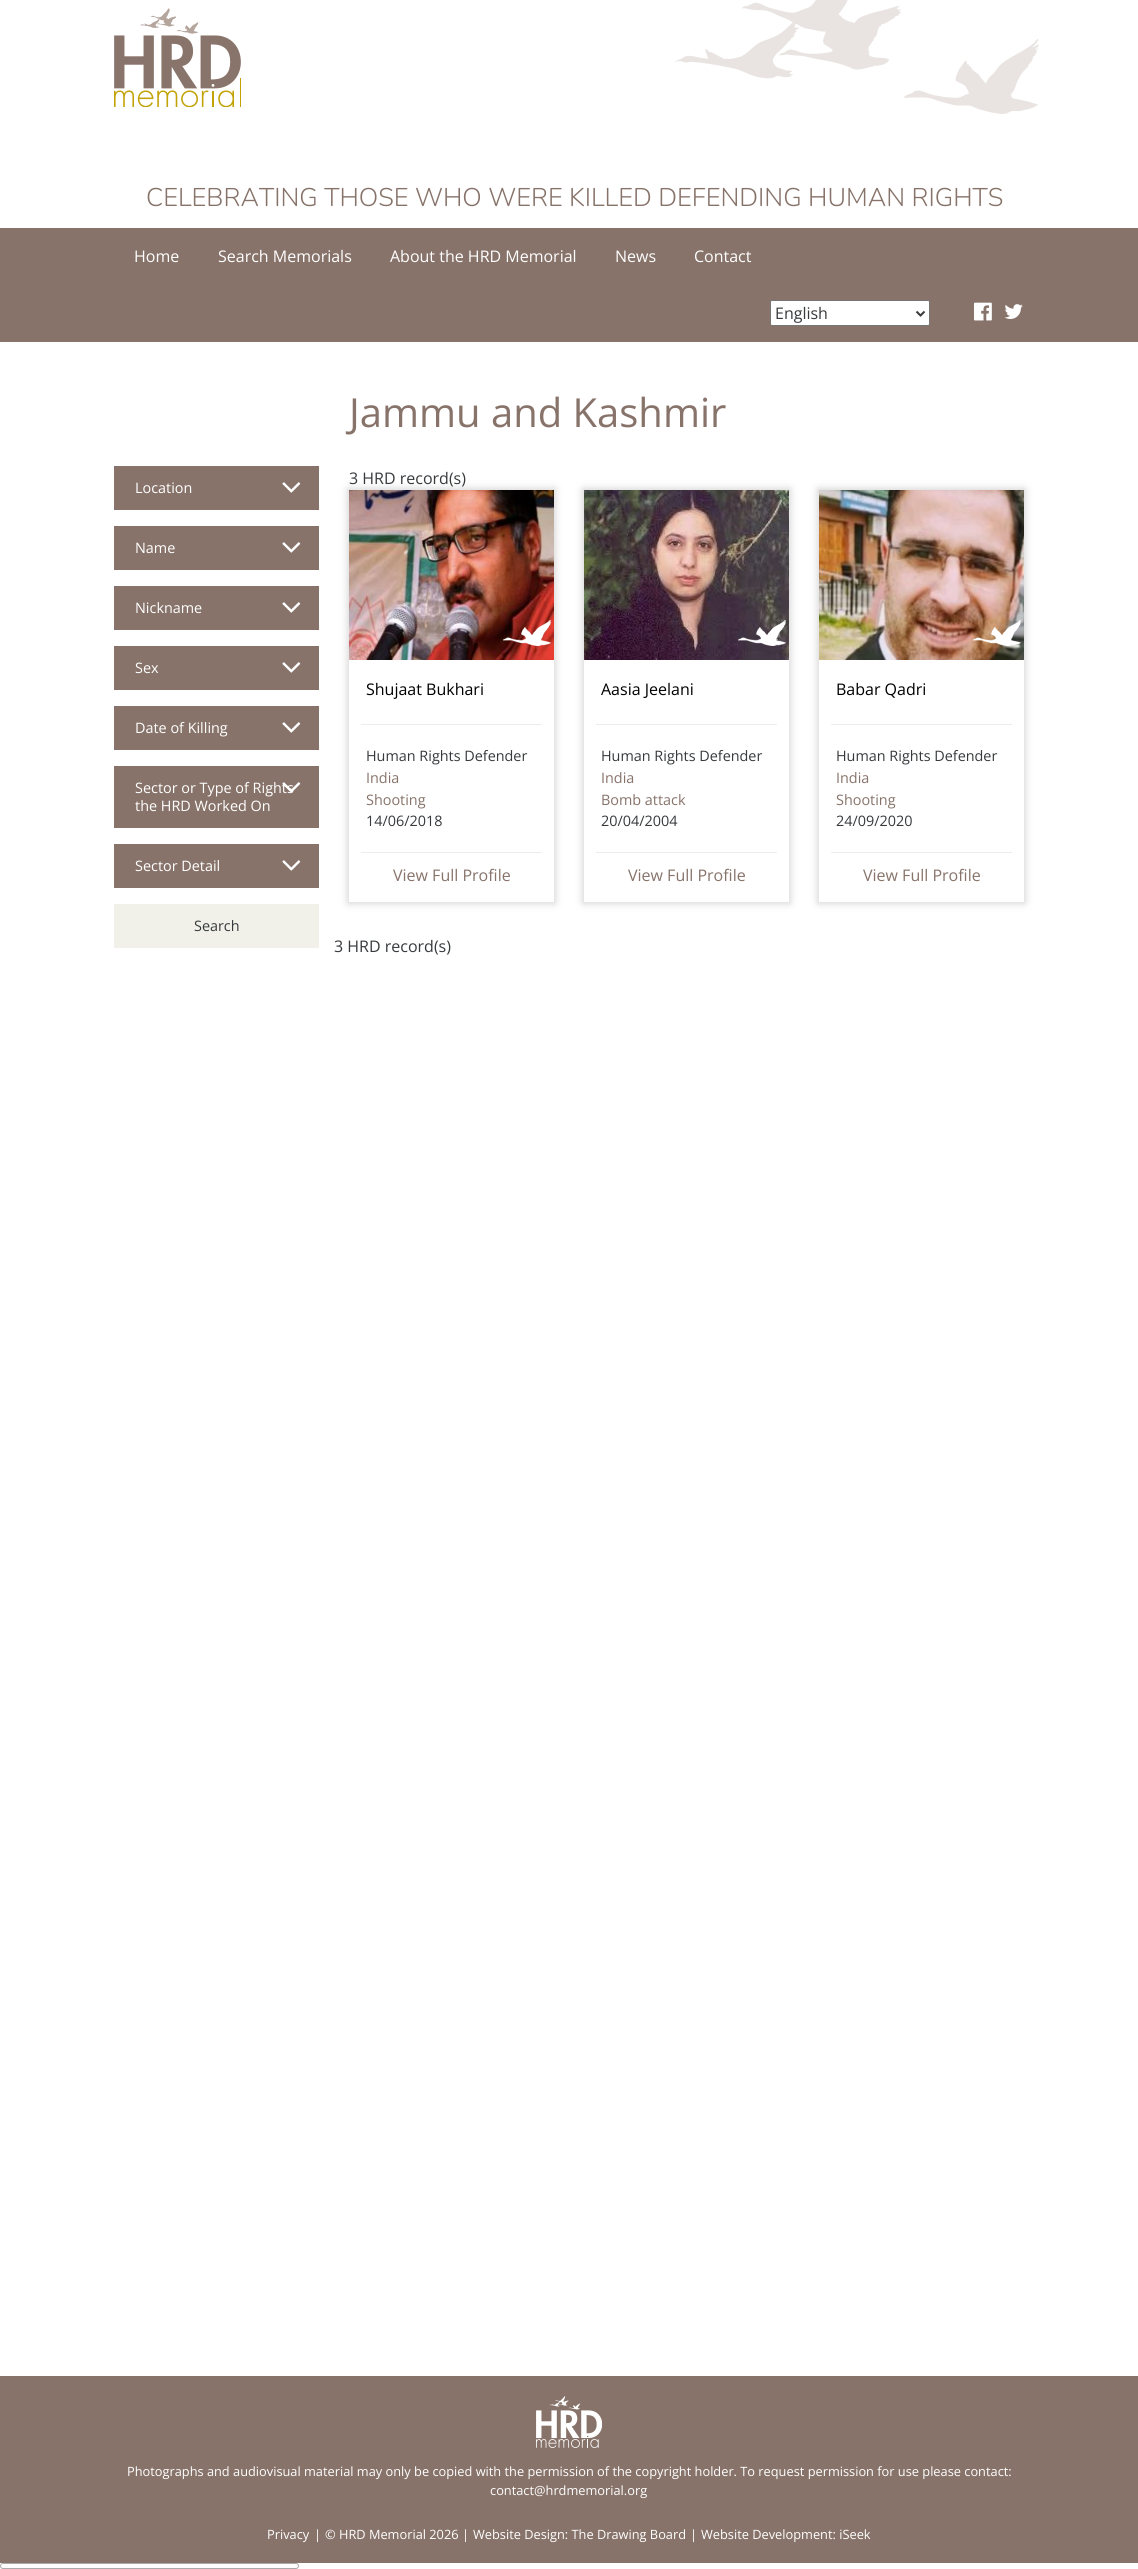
import math
import cairo


def use_color(cr, r, g, b):
  cr.set_source_rgb(r / 255, g / 255, b / 255)

def text(cr, x, y, s, family, size, color, bold=False, italic=False):
  cr.select_font_face(family, cairo.FONT_SLANT_ITALIC if italic else cairo.FONT_SLANT_NORMAL, cairo.FONT_WEIGHT_BOLD if bold else cairo.FONT_WEIGHT_NORMAL)
  cr.set_font_size(size)
  use_color(cr, *color)
  cr.move_to(x, y)
  cr.show_text(s)

def box(cr, x, y, w, h, *color):
  use_color(cr, *color)
  cr.rectangle(x, y, w, h)
  cr.fill()

def round_rect(cr, x, y, w, h, r):
  cr.new_sub_path()
  for i, (u, v) in enumerate([(x + w - r, y + h - r), (x + r, y + h - r), (x + r, y + r), (x + w - r, y + r)]):
    cr.arc(u, v, r, i * math.pi / 2, (i + 1) * math.pi / 2)
  cr.close_path()

def shadow(cr, x, y, w, h, r, blur, alpha):
  cr.push_group_with_content(cairo.CONTENT_ALPHA)
  cr.set_operator(cairo.OPERATOR_SOURCE)
  for i in range(15, -16, -2):
    e = blur * i / 6
    if min(w, h) + 2 * e > 0:
      cr.set_source_rgba(0, 0, 0, alpha * math.erfc((i - 1) / 8.5) / 2)
      round_rect(cr, x - e, y - e, w + 2 * e, h + 2 * e, max(0, min(r + e + blur * .6, min(w, h) / 2 + e)))
      cr.fill()
  cr.mask(cr.pop_group())

def picture(cr, path, x, y, w, h):
  cr.save()
  cr.set_source_surface(cairo.ImageSurface.create_from_png(path), x, y)
  cr.rectangle(x, y, w, h)
  cr.fill()
  cr.restore()

def draw(cr):
  use_color(cr, 255, 255, 255)
  cr.paint()
  picture(cr, "img_01.png", 675, 0, 364, 114)
  picture(cr, "img_02.png", 114, 8, 127, 99)
  box(cr, 0, 228, 1138, 114, 135, 115, 106)
  use_color(cr, 255, 255, 255)
  round_rect(cr, 770.5, 300.5, 159, 25, 1.5)
  cr.fill_preserve()
  use_color(cr, 118, 118, 118)
  cr.set_line_width(1)
  cr.stroke()
  cr.new_path()
  cr.move_to(916.5, 311.5)
  cr.line_to(920.5, 315.5)
  cr.line_to(924.5, 311.5)
  use_color(cr, 55, 58, 60)
  cr.set_line_width(2)
  cr.stroke()
  picture(cr, "img_03.png", 974, 302, 18, 19)
  picture(cr, "img_04.png", 1004, 304, 19, 15)
  box(cr, 114, 466, 205, 44, 135, 115, 106)
  picture(cr, "img_05.png", 282, 482, 19, 11)
  box(cr, 114, 526, 205, 44, 135, 115, 106)
  picture(cr, "img_05.png", 282, 542, 19, 11)
  box(cr, 114, 586, 205, 44, 135, 115, 106)
  picture(cr, "img_05.png", 282, 602, 19, 11)
  box(cr, 114, 646, 205, 44, 135, 115, 106)
  picture(cr, "img_05.png", 282, 662, 19, 11)
  box(cr, 114, 706, 205, 44, 135, 115, 106)
  picture(cr, "img_05.png", 282, 722, 19, 11)
  box(cr, 114, 766, 205, 62, 135, 115, 106)
  box(cr, 114, 844, 205, 44, 135, 115, 106)
  picture(cr, "img_05.png", 282, 860, 19, 11)
  box(cr, 114, 904, 205, 44, 241, 241, 233)
  cr.save()
  cr.set_fill_rule(cairo.FILL_RULE_EVEN_ODD)
  cr.new_path()
  cr.move_to(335, 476)
  cr.line_to(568, 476)
  cr.line_to(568, 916)
  cr.line_to(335, 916)
  cr.close_path()
  cr.move_to(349, 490)
  cr.line_to(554, 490)
  cr.line_to(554, 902)
  cr.line_to(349, 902)
  cr.close_path()
  cr.clip()
  use_color(cr, 209, 209, 209)
  shadow(cr, 348, 489, 207, 414, 0, 4, 1)
  cr.restore()
  picture(cr, "img_07.png", 349, 490, 205, 170)
  picture(cr, "img_08.png", 503, 620, 48, 26)
  box(cr, 361, 724, 181, 1, 236, 236, 236)
  box(cr, 361, 852, 181, 1, 236, 236, 236)
  cr.save()
  cr.set_fill_rule(cairo.FILL_RULE_EVEN_ODD)
  cr.new_path()
  cr.move_to(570, 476)
  cr.line_to(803, 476)
  cr.line_to(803, 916)
  cr.line_to(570, 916)
  cr.close_path()
  cr.move_to(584, 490)
  cr.line_to(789, 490)
  cr.line_to(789, 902)
  cr.line_to(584, 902)
  cr.close_path()
  cr.clip()
  use_color(cr, 209, 209, 209)
  shadow(cr, 583, 489, 207, 414, 0, 4, 1)
  cr.restore()
  picture(cr, "img_09.png", 584, 490, 205, 170)
  picture(cr, "img_10.png", 738, 620, 48, 26)
  box(cr, 596, 724, 181, 1, 236, 236, 236)
  box(cr, 596, 852, 181, 1, 236, 236, 236)
  cr.save()
  cr.set_fill_rule(cairo.FILL_RULE_EVEN_ODD)
  cr.new_path()
  cr.move_to(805, 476)
  cr.line_to(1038, 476)
  cr.line_to(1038, 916)
  cr.line_to(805, 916)
  cr.close_path()
  cr.move_to(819, 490)
  cr.line_to(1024, 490)
  cr.line_to(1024, 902)
  cr.line_to(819, 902)
  cr.close_path()
  cr.clip()
  use_color(cr, 209, 209, 209)
  shadow(cr, 818, 489, 207, 414, 0, 4, 1)
  cr.restore()
  picture(cr, "img_11.png", 819, 490, 205, 170)
  picture(cr, "img_12.png", 973, 620, 48, 26)
  box(cr, 831, 724, 181, 1, 236, 236, 236)
  box(cr, 831, 852, 181, 1, 236, 236, 236)
  box(cr, 0, 2376, 1138, 187, 135, 115, 106)
  picture(cr, "img_13.png", 536, 2396, 66, 52)
  round_rect(cr, 0.5, 2563.5, 298, 5, 2.5)
  use_color(cr, 170, 170, 170)
  cr.set_line_width(1)
  cr.stroke()
  text(cr, 146, 206, "CELEBRATING THOSE WHO WERE KILLED DEFENDING HUMAN RIGHTS", "Nunito Light", 25.6, (135, 115, 106))
  text(cr, 134, 262, "Home", "Open Sans", 16, (255, 255, 255))
  text(cr, 218, 262, "Search Memorials", "Open Sans", 16, (255, 255, 255))
  text(cr, 390, 262, "About the HRD Memorial", "Open Sans", 16, (255, 255, 255))
  text(cr, 615, 262, "News", "Open Sans", 16, (255, 255, 255))
  text(cr, 694, 262, "Contact", "Open Sans", 16, (255, 255, 255))
  text(cr, 775, 319, "English", "Open Sans", 16, (55, 58, 60))
  text(cr, 349, 427, "Jammu and Kashmir", "Open Sans", 40, (135, 115, 106))
  text(cr, 135, 493, "Location", "Open Sans", 14.4, (255, 255, 255))
  text(cr, 135, 553, "Name", "Open Sans", 14.4, (255, 255, 255))
  text(cr, 135, 613, "Nickname", "Open Sans", 14.4, (255, 255, 255))
  text(cr, 135, 673, "Sex", "Open Sans", 14.4, (255, 255, 255))
  text(cr, 135, 733, "Date of Killing", "Open Sans", 14.4, (255, 255, 255))
  text(cr, 135, 793, "Sector or Type of Rights", "Open Sans", 14.4, (255, 255, 255))
  picture(cr, "img_06.png", 282, 782, 19, 11)
  text(cr, 135, 811, "the HRD Worked On", "Open Sans", 14.4, (255, 255, 255))
  text(cr, 135, 871, "Sector Detail", "Open Sans", 14.4, (255, 255, 255))
  text(cr, 194, 931, "Search", "Open Sans", 14.4, (55, 58, 60))
  text(cr, 349, 484, "3 HRD record(s)", "Open Sans", 16, (55, 58, 60))
  text(cr, 366, 695, "Shujaat Bukhari", "Open Sans", 16, (0, 0, 0))
  text(cr, 366, 761, "Human Rights Defender", "Open Sans", 14.4, (55, 58, 60))
  text(cr, 366, 783, "India", "Open Sans", 14.4, (135, 115, 106))
  text(cr, 366, 805, "Shooting", "Open Sans", 14.4, (135, 115, 106))
  text(cr, 366, 826, "14/06/2018", "Open Sans", 14.4, (55, 58, 60))
  text(cr, 393, 881, "View Full Profile", "Open Sans", 16, (135, 115, 106))
  text(cr, 601, 695, "Aasia Jeelani", "Open Sans", 16, (0, 0, 0))
  text(cr, 601, 761, "Human Rights Defender", "Open Sans", 14.4, (55, 58, 60))
  text(cr, 601, 783, "India", "Open Sans", 14.4, (135, 115, 106))
  text(cr, 601, 805, "Bomb attack", "Open Sans", 14.4, (135, 115, 106))
  text(cr, 601, 826, "20/04/2004", "Open Sans", 14.4, (55, 58, 60))
  text(cr, 628, 881, "View Full Profile", "Open Sans", 16, (135, 115, 106))
  text(cr, 836, 695, "Babar Qadri", "Open Sans", 16, (0, 0, 0))
  text(cr, 836, 761, "Human Rights Defender", "Open Sans", 14.4, (55, 58, 60))
  text(cr, 836, 783, "India", "Open Sans", 14.4, (135, 115, 106))
  text(cr, 836, 805, "Shooting", "Open Sans", 14.4, (135, 115, 106))
  text(cr, 836, 826, "24/09/2020", "Open Sans", 14.4, (55, 58, 60))
  text(cr, 863, 881, "View Full Profile", "Open Sans", 16, (135, 115, 106))
  text(cr, 334, 952, "3 HRD record(s)", "Open Sans", 16, (55, 58, 60))
  text(cr, 127, 2476, "Photographs and audiovisual material may only be copied with the permission of the copyright holder. To request permission for use please contact:", "Open Sans", 12.8, (255, 255, 255))
  text(cr, 490, 2495, "contact@hrdmemorial.org", "Open Sans", 12.8, (255, 255, 255))
  text(cr, 267, 2539, "Privacy", "Open Sans", 12.8, (255, 255, 255))
  text(cr, 314, 2539, "|", "Open Sans", 12.8, (255, 255, 255))
  text(cr, 325, 2539, "© HRD Memorial 2026", "Open Sans", 12.8, (255, 255, 255))
  text(cr, 462, 2539, "|", "Open Sans", 12.8, (255, 255, 255))
  text(cr, 473, 2539, "Website Design: The Drawing Board", "Open Sans", 12.8, (255, 255, 255))
  text(cr, 690, 2539, "|", "Open Sans", 12.8, (255, 255, 255))
  text(cr, 701, 2539, "Website Development: iSeek", "Open Sans", 12.8, (255, 255, 255))


surface = cairo.ImageSurface(cairo.FORMAT_RGB24, 1138, 2569)
cr = cairo.Context(surface)
options = cairo.FontOptions()
options.set_hint_metrics(cairo.HINT_METRICS_OFF)
options.set_hint_style(cairo.HINT_STYLE_NONE)
cr.set_font_options(options)
cr.set_miter_limit(4)
draw(cr)
surface.write_to_png("out.png")
